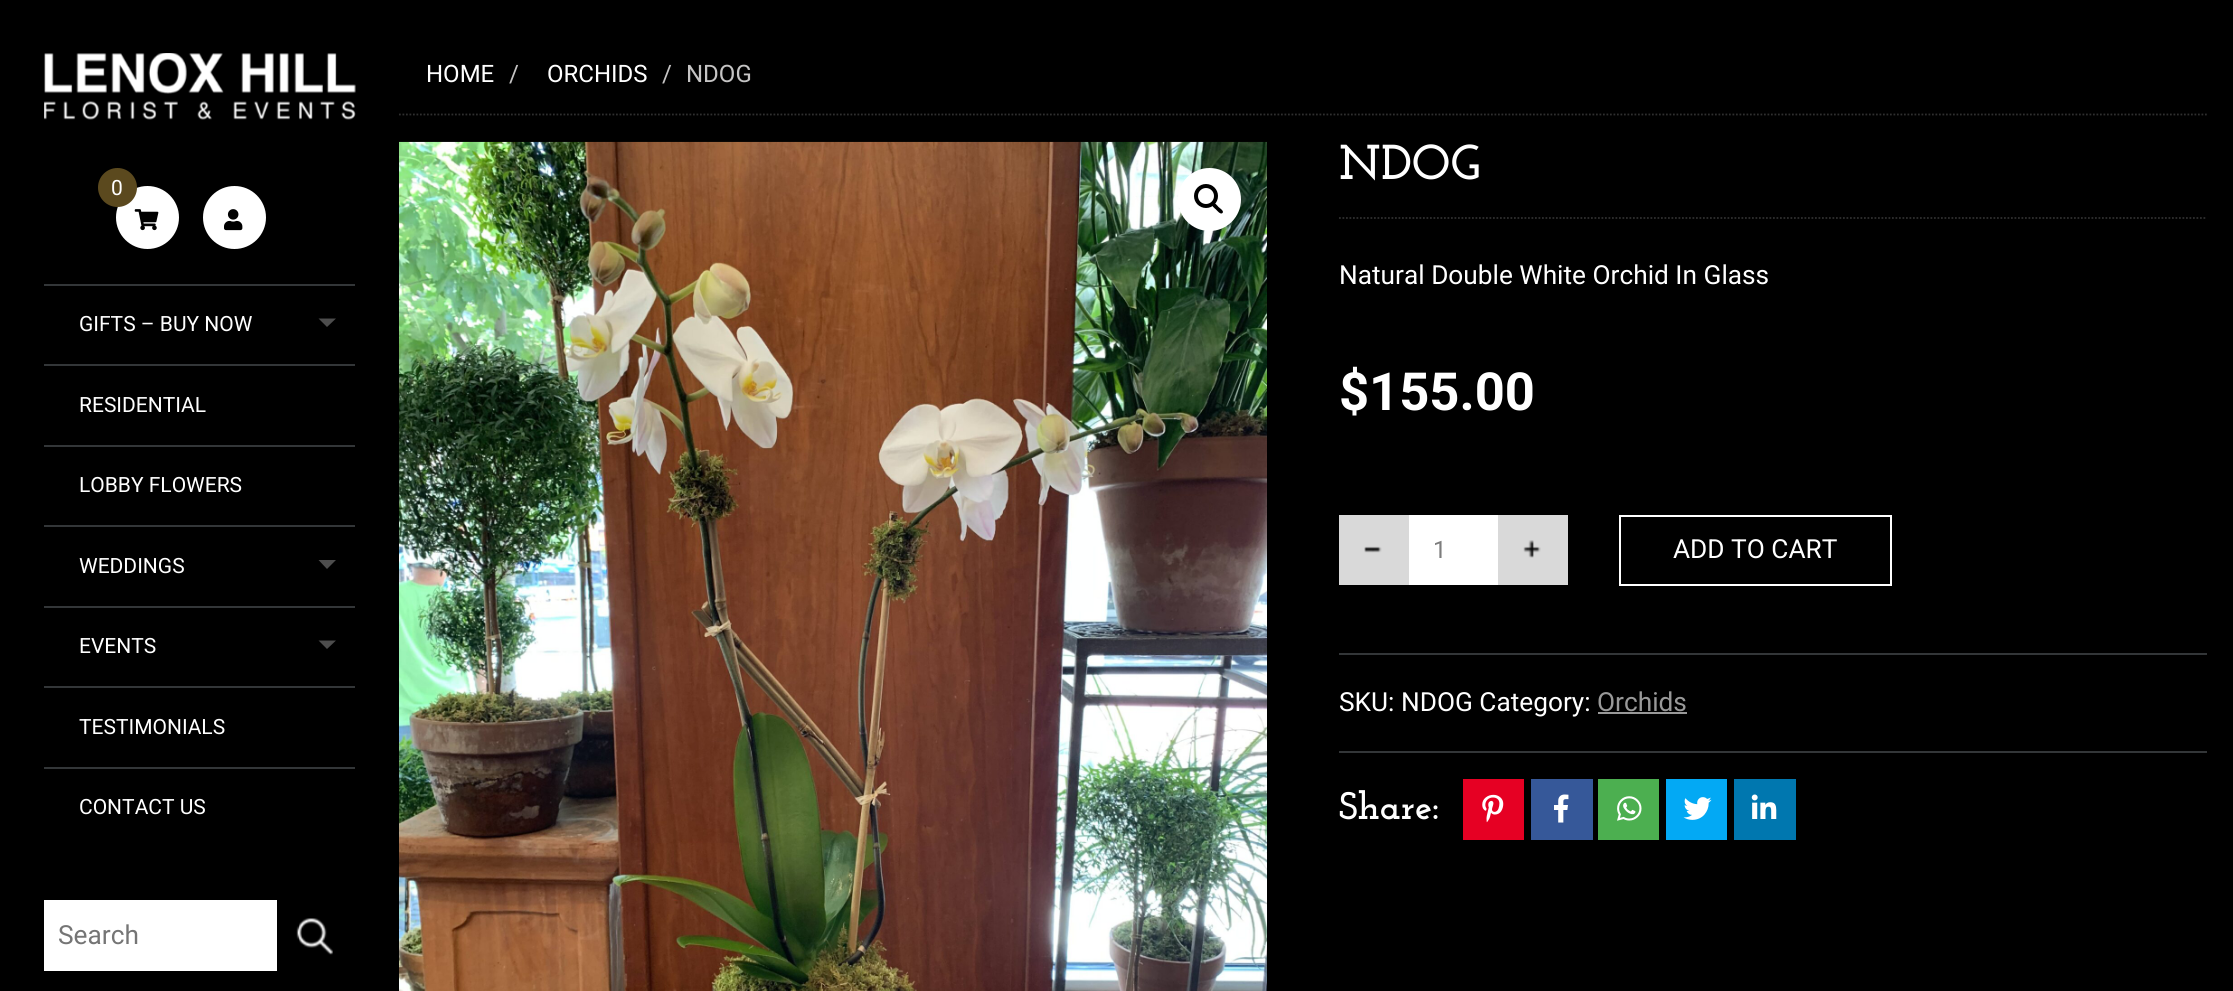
import math
import cairo


def use_color(cr, r, g, b):
  cr.set_source_rgb(r / 255, g / 255, b / 255)

def text(cr, x, y, s, family, size, color, bold=False, italic=False):
  cr.select_font_face(family, cairo.FONT_SLANT_ITALIC if italic else cairo.FONT_SLANT_NORMAL, cairo.FONT_WEIGHT_BOLD if bold else cairo.FONT_WEIGHT_NORMAL)
  cr.set_font_size(size)
  use_color(cr, *color)
  cr.move_to(x, y)
  cr.show_text(s)

def box(cr, x, y, w, h, *color):
  use_color(cr, *color)
  cr.rectangle(x, y, w, h)
  cr.fill()

def picture(cr, path, x, y, w, h):
  cr.save()
  cr.set_source_surface(cairo.ImageSurface.create_from_png(path), x, y)
  cr.rectangle(x, y, w, h)
  cr.fill()
  cr.restore()

def draw(cr):
  use_color(cr, 0, 0, 0)
  cr.paint()
  picture(cr, "img_01.png", 44, 53, 312, 67)
  use_color(cr, 255, 255, 255)
  cr.arc(147.5, 217.5, 29.5, 0, 2 * math.pi)
  cr.fill_preserve()
  cr.set_line_width(4)
  cr.stroke()
  use_color(cr, 91, 73, 30)
  cr.arc(117.5, 187.5, 19.5, 0, 2 * math.pi)
  cr.fill()
  picture(cr, "img_02.png", 134, 209, 25, 22)
  use_color(cr, 255, 255, 255)
  cr.arc(234.5, 217.5, 29.5, 0, 2 * math.pi)
  cr.fill_preserve()
  cr.stroke()
  picture(cr, "img_03.png", 224, 209, 19, 22)
  box(cr, 44, 284, 311, 2, 51, 54, 56)
  use_color(cr, 77, 77, 77)
  cr.new_path()
  cr.move_to(318.5, 318.5)
  cr.line_to(336, 318.5)
  cr.line_to(327, 327)
  cr.close_path()
  cr.fill()
  box(cr, 44, 364, 311, 2, 51, 54, 56)
  box(cr, 44, 445, 311, 2, 51, 54, 56)
  box(cr, 44, 525, 311, 2, 51, 54, 56)
  use_color(cr, 77, 77, 77)
  cr.new_path()
  cr.move_to(318.5, 560)
  cr.line_to(336, 560)
  cr.line_to(327, 569)
  cr.close_path()
  cr.fill()
  box(cr, 44, 606, 311, 2, 51, 54, 56)
  use_color(cr, 77, 77, 77)
  cr.new_path()
  cr.move_to(318.5, 640.5)
  cr.line_to(336, 640.5)
  cr.line_to(327, 649)
  cr.close_path()
  cr.fill()
  box(cr, 44, 686, 311, 2, 51, 54, 56)
  box(cr, 44, 767, 311, 2, 51, 54, 56)
  box(cr, 44, 900, 233, 71, 255, 255, 255)
  picture(cr, "img_04.png", 296, 918, 37, 37)
  cr.new_path()
  cr.move_to(399, 114.5)
  cr.line_to(2207, 114.5)
  use_color(cr, 47, 47, 47)
  cr.set_line_width(1.8)
  cr.set_dash([1.75, 1.75])
  cr.stroke()
  picture(cr, "img_05.png", 399, 141, 868, 850)
  use_color(cr, 255, 255, 255)
  cr.arc(1209.5, 199.5, 31.5, 0, 2 * math.pi)
  cr.fill()
  cr.arc(1206, 196, 10, 0, 2 * math.pi)
  use_color(cr, 0, 0, 0)
  cr.set_line_width(4)
  cr.set_dash([])
  cr.stroke()
  cr.new_path()
  cr.move_to(1212.5, 203.5)
  cr.curve_to(1214.5, 201.5, 1217.5, 206, 1218.5, 207)
  cr.curve_to(1219.5, 208, 1224.5, 211, 1222.5, 213)
  cr.curve_to(1220.5, 215, 1217, 210.5, 1216, 209.5)
  cr.curve_to(1215, 208.5, 1210.5, 205.5, 1212.5, 203.5)
  cr.close_path()
  cr.fill()
  cr.new_path()
  cr.move_to(1339, 218)
  cr.line_to(2207, 218)
  use_color(cr, 47, 47, 47)
  cr.set_line_width(1.8)
  cr.set_dash([1.75, 1.75])
  cr.stroke()
  box(cr, 1339, 515, 70, 70, 217, 217, 217)
  picture(cr, "img_06.png", 1364, 546, 18, 7)
  box(cr, 1409, 515, 89, 70, 255, 255, 255)
  box(cr, 1498, 515, 70, 70, 217, 217, 217)
  picture(cr, "img_07.png", 1523, 540, 18, 18)
  cr.rectangle(1620, 516, 271, 69)
  use_color(cr, 255, 255, 255)
  cr.set_line_width(2)
  cr.set_dash([])
  cr.stroke()
  box(cr, 1339, 653, 868, 2, 51, 54, 56)
  box(cr, 1339, 751, 868, 2, 51, 54, 56)
  box(cr, 1598, 712, 89, 2, 153, 153, 153)
  box(cr, 1463, 779, 61, 61, 230, 0, 35)
  picture(cr, "img_08.png", 1482, 794, 22, 29)
  box(cr, 1531, 779, 62, 61, 54, 88, 153)
  picture(cr, "img_09.png", 1554, 794, 15, 29)
  box(cr, 1598, 779, 61, 61, 76, 175, 80)
  picture(cr, "img_10.png", 1617, 796, 25, 25)
  box(cr, 1666, 779, 61, 61, 3, 169, 244)
  picture(cr, "img_11.png", 1683, 797, 29, 23)
  box(cr, 1734, 779, 62, 61, 0, 119, 175)
  picture(cr, "img_12.png", 1751, 794, 26, 25)
  text(cr, 111, 195, "0", "Roboto", 21, (255, 255, 255))
  text(cr, 79, 331, "GIFTS – BUY NOW", "Roboto", 21, (255, 255, 255))
  text(cr, 79, 412, "RESIDENTIAL", "Roboto", 21, (255, 255, 255))
  text(cr, 79, 492, "LOBBY FLOWERS", "Roboto", 21, (255, 255, 255))
  text(cr, 79, 573, "WEDDINGS", "Roboto", 21, (255, 255, 255))
  text(cr, 79, 653, "EVENTS", "Roboto", 21, (255, 255, 255))
  text(cr, 79, 734, "TESTIMONIALS", "Roboto", 21, (255, 255, 255))
  text(cr, 79, 814, "CONTACT US", "Roboto", 21, (255, 255, 255))
  text(cr, 58, 944, "Search", "Roboto", 26.25, (117, 117, 117))
  text(cr, 426, 82, "HOME", "Roboto", 24, (255, 255, 255))
  text(cr, 509, 82, "/", "Roboto", 24, (197, 196, 196))
  text(cr, 547, 82, "ORCHIDS", "Roboto", 24, (255, 255, 255))
  text(cr, 662, 82, "/", "Roboto", 24, (197, 196, 196))
  text(cr, 686, 82, "NDOG", "Roboto", 24, (197, 196, 196))
  text(cr, 1339, 179, "NDOG", "Josefin Slab", 49, (255, 255, 255), bold=True)
  text(cr, 1339, 284, "Natural Double White Orchid In Glass", "Roboto", 26.25, (255, 255, 255))
  text(cr, 1339, 410, "$155.00", "Roboto", 52.5, (255, 255, 255), bold=True)
  text(cr, 1433, 558, "1", "Roboto", 24, (125, 125, 125))
  text(cr, 1673, 558, "ADD TO CART", "Roboto", 26.25, (255, 255, 255))
  text(cr, 1339, 711, "SKU: NDOG Category:", "Roboto", 26.25, (255, 255, 255))
  text(cr, 1597, 711, "Orchids", "Roboto", 26.25, (153, 153, 153))
  text(cr, 1339, 819, "Share:", "Josefin Slab", 38.5, (255, 255, 255), bold=True)


surface = cairo.ImageSurface(cairo.FORMAT_RGB24, 2233, 991)
cr = cairo.Context(surface)
options = cairo.FontOptions()
options.set_hint_metrics(cairo.HINT_METRICS_OFF)
options.set_hint_style(cairo.HINT_STYLE_NONE)
cr.set_font_options(options)
cr.set_miter_limit(4)
draw(cr)
surface.write_to_png("out.png")
